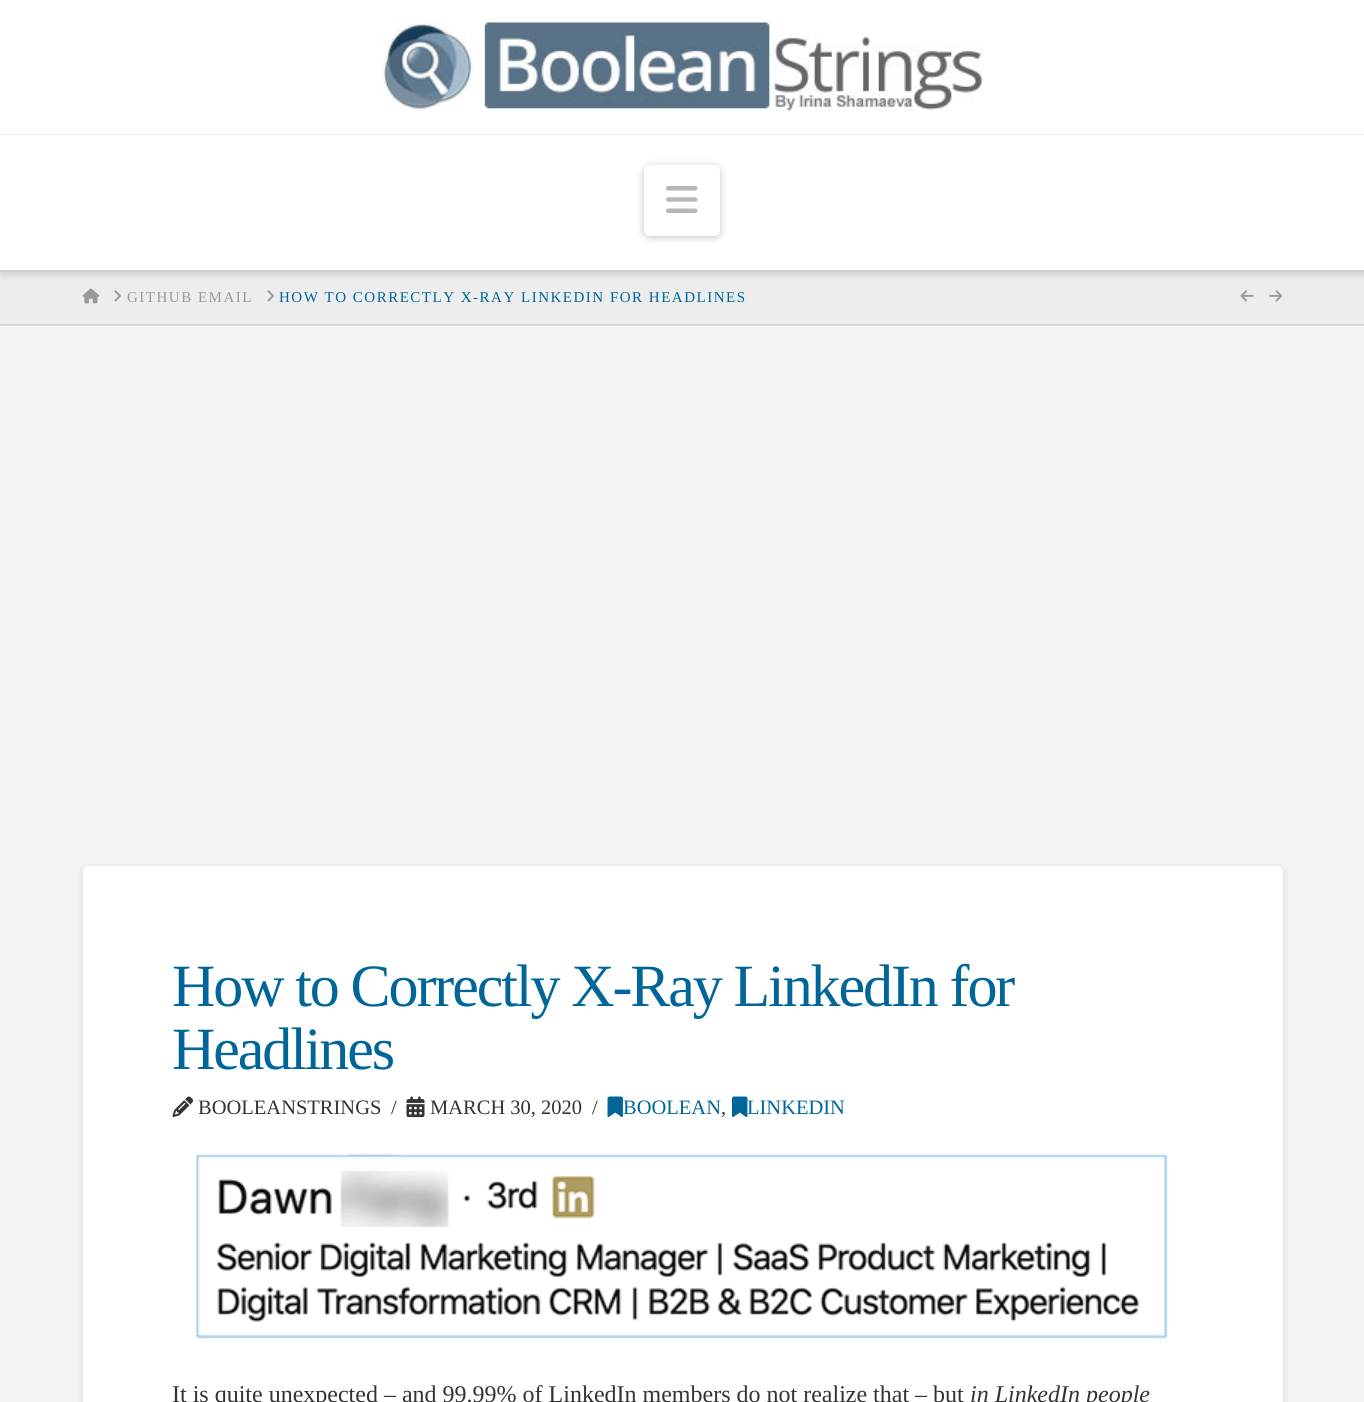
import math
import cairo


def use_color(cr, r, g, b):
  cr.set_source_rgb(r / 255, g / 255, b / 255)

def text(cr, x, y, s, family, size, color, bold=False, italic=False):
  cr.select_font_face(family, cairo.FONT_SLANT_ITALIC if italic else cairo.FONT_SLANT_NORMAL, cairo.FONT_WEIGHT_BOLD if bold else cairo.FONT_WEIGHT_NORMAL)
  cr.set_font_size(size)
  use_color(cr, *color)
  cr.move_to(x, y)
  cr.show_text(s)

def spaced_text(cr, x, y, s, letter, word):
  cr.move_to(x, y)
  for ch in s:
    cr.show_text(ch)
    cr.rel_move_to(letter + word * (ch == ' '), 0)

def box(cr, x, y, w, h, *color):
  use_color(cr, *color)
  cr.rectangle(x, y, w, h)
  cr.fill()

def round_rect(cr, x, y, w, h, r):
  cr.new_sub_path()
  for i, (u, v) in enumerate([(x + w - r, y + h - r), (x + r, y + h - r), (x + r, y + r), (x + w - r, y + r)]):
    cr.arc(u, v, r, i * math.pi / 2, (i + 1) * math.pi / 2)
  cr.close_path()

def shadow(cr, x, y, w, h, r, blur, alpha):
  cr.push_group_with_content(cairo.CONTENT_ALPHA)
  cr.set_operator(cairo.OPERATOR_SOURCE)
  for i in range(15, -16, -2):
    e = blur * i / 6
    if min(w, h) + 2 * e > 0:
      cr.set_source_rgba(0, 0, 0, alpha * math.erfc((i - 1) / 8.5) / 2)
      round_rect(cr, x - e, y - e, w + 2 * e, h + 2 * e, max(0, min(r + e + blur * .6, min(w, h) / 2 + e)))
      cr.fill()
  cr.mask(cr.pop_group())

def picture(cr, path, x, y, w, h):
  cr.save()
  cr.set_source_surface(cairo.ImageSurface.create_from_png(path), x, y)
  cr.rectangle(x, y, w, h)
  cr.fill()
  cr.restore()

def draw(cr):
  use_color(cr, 243, 243, 243)
  cr.paint()
  box(cr, 0, 0, 1364, 134, 255, 255, 255)
  picture(cr, "img_01.png", 382, 22, 601, 89)
  box(cr, 0, 272, 1364, 52, 237, 237, 237)
  use_color(cr, 0, 0, 0)
  shadow(cr, 0, 138, 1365, 137, 0, 3.5, 0.13)
  box(cr, 0, 135, 1364, 135, 255, 255, 255)
  box(cr, 0, 270, 1364, 2, 204, 204, 204)
  use_color(cr, 0, 0, 0)
  shadow(cr, 644, 167, 76, 70, 6, 4, 0.25)
  use_color(cr, 255, 255, 255)
  round_rect(cr, 644, 165, 76, 71, 6)
  cr.fill()
  picture(cr, "img_02.png", 666, 186, 32, 27)
  box(cr, 0, 326, 1364, 1, 252, 252, 252)
  box(cr, 0, 324, 1364, 2, 213, 213, 213)
  picture(cr, "img_03.png", 82, 288, 18, 16)
  picture(cr, "img_04.png", 114, 290, 7, 12)
  picture(cr, "img_04.png", 267, 290, 7, 12)
  picture(cr, "img_05.png", 1240, 290, 14, 12)
  picture(cr, "img_06.png", 1269, 290, 13, 12)
  use_color(cr, 0, 0, 0)
  shadow(cr, 83, 869, 1200, 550, 6, 3.5, 0.13)
  use_color(cr, 255, 255, 255)
  round_rect(cr, 83, 866, 1200, 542, 6)
  cr.fill()
  picture(cr, "img_07.png", 172, 1096, 21, 21)
  picture(cr, "img_08.png", 406, 1096, 19, 22)
  picture(cr, "img_09.png", 607, 1096, 16, 21)
  picture(cr, "img_10.png", 732, 1096, 16, 21)
  picture(cr, "img_11.png", 195, 1153, 975, 188)
  cr.select_font_face("Liberation Serif")
  cr.set_font_size(15)
  use_color(cr, 153, 153, 153)
  spaced_text(cr, 127, 302, "GITHUB EMAIL", 1.5, 0)
  use_color(cr, 0, 102, 153)
  spaced_text(cr, 279, 302, "HOW TO CORRECTLY X-RAY LINKEDIN FOR HEADLINES", 1.5, 0)
  cr.set_font_size(60)
  spaced_text(cr, 172, 1006, "How to Correctly X-Ray LinkedIn for", -2.1, 0)
  spaced_text(cr, 172, 1069, "Headlines", -2.1, 0)
  text(cr, 198, 1114, "BOOLEANSTRINGS", "Liberation Serif", 20.5, (51, 51, 51))
  text(cr, 391, 1114, "/", "Liberation Serif", 20.5, (51, 51, 51))
  text(cr, 430, 1114, "MARCH 30, 2020", "Liberation Serif", 20.5, (51, 51, 51))
  text(cr, 592, 1114, "/", "Liberation Serif", 20.5, (51, 51, 51))
  text(cr, 623, 1114, "BOOLEAN", "Liberation Serif", 20.5, (0, 102, 153))
  text(cr, 721, 1114, ",", "Liberation Serif", 20.5, (51, 51, 51))
  text(cr, 747, 1114, "LINKEDIN", "Liberation Serif", 20.5, (0, 102, 153))
  text(cr, 172, 1402, "It is quite unexpected – and 99.99% of LinkedIn members do not realize that – but", "Liberation Serif", 24, (51, 51, 51))
  text(cr, 970, 1402, "in LinkedIn people", "Liberation Serif", 24, (51, 51, 51), italic=True)


surface = cairo.ImageSurface(cairo.FORMAT_RGB24, 1364, 1402)
cr = cairo.Context(surface)
options = cairo.FontOptions()
options.set_hint_metrics(cairo.HINT_METRICS_OFF)
options.set_hint_style(cairo.HINT_STYLE_NONE)
cr.set_font_options(options)
cr.set_miter_limit(4)
draw(cr)
surface.write_to_png("out.png")
